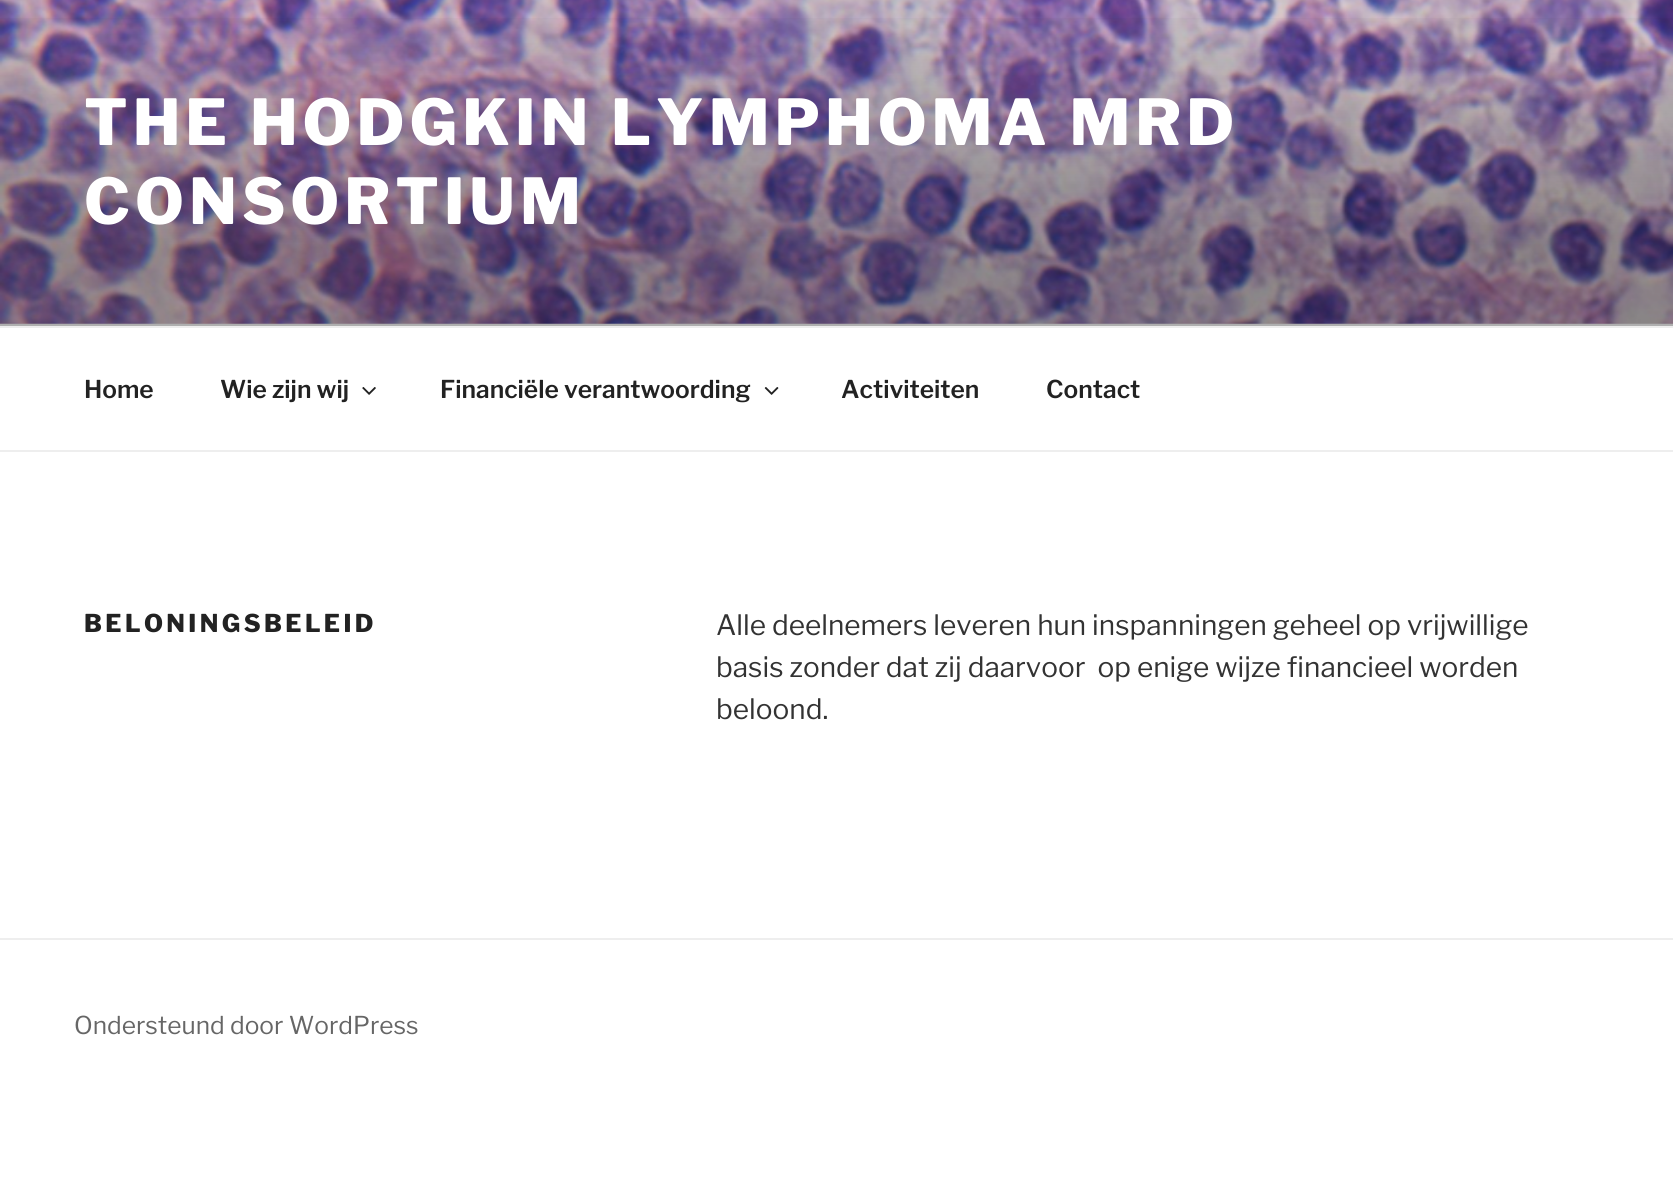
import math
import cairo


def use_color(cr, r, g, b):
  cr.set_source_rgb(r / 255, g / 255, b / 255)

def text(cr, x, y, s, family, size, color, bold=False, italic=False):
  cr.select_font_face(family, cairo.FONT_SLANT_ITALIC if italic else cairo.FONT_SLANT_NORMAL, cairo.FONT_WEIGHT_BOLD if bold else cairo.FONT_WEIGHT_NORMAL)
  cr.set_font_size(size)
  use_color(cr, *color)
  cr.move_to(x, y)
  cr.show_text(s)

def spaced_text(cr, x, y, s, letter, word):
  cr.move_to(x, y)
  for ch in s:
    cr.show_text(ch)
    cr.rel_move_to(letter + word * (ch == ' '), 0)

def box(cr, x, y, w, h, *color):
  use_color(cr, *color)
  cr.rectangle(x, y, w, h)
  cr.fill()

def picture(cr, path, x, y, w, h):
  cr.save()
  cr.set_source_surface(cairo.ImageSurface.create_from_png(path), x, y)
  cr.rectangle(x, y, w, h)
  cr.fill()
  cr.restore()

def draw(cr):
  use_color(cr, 255, 255, 255)
  cr.paint()
  box(cr, 0, 323, 1673, 3, 250, 250, 250)
  picture(cr, "img_01.png", 0, 0, 1673, 324)
  gradient = cairo.LinearGradient(837, 0, 837, 326)
  gradient.add_color_stop_rgba(0, 0, 0, 0, 0)
  gradient.add_color_stop_rgba(0.75, 0, 0, 0, 0.3)
  gradient.add_color_stop_rgba(1, 0, 0, 0, 0.3)
  cr.set_source(gradient)
  cr.rectangle(0, 18, 1673, 308)
  cr.fill()
  box(cr, 0, 326, 1673, 2, 238, 238, 238)
  box(cr, 0, 450, 1673, 2, 238, 238, 238)
  picture(cr, "img_02.png", 362, 387, 14, 8)
  picture(cr, "img_03.png", 764, 387, 15, 8)
  box(cr, 0, 938, 1673, 2, 238, 238, 238)
  cr.select_font_face("Libre Franklin Thin")
  cr.set_font_size(63)
  use_color(cr, 255, 255, 255)
  spaced_text(cr, 84, 145, "THE HODGKIN LYMPHOMA MRD", 5, 0)
  spaced_text(cr, 84, 224, "CONSORTIUM", 5, 0)
  text(cr, 84, 398, "Home", "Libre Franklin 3 Thin", 24.5, (34, 34, 34))
  text(cr, 220, 398, "Wie zijn wij", "Libre Franklin 3 Thin", 24.5, (34, 34, 34))
  text(cr, 440, 398, "Financiële verantwoording", "Libre Franklin 3 Thin", 24.5, (34, 34, 34))
  text(cr, 841, 398, "Activiteiten", "Libre Franklin 3 Thin", 24.5, (34, 34, 34))
  text(cr, 1046, 398, "Contact", "Libre Franklin 3 Thin", 24.5, (34, 34, 34))
  cr.select_font_face("Libre Franklin Thin")
  spaced_text(cr, 84, 632, "BELONINGSBELEID", 3.4, 0)
  text(cr, 716, 635, "Alle deelnemers leveren hun inspanningen geheel op vrijwillige", "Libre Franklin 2 Thin", 28, (51, 51, 51))
  text(cr, 716, 677, "basis zonder dat zij daarvoor  op enige wijze financieel worden", "Libre Franklin 2 Thin", 28, (51, 51, 51))
  text(cr, 716, 719, "beloond.", "Libre Franklin 2 Thin", 28, (51, 51, 51))
  text(cr, 74, 1034, "Ondersteund door WordPress", "Libre Franklin 2 Thin", 24.5, (102, 102, 102))


surface = cairo.ImageSurface(cairo.FORMAT_RGB24, 1673, 1189)
cr = cairo.Context(surface)
options = cairo.FontOptions()
options.set_hint_metrics(cairo.HINT_METRICS_OFF)
options.set_hint_style(cairo.HINT_STYLE_NONE)
cr.set_font_options(options)
cr.set_miter_limit(4)
draw(cr)
surface.write_to_png("out.png")
